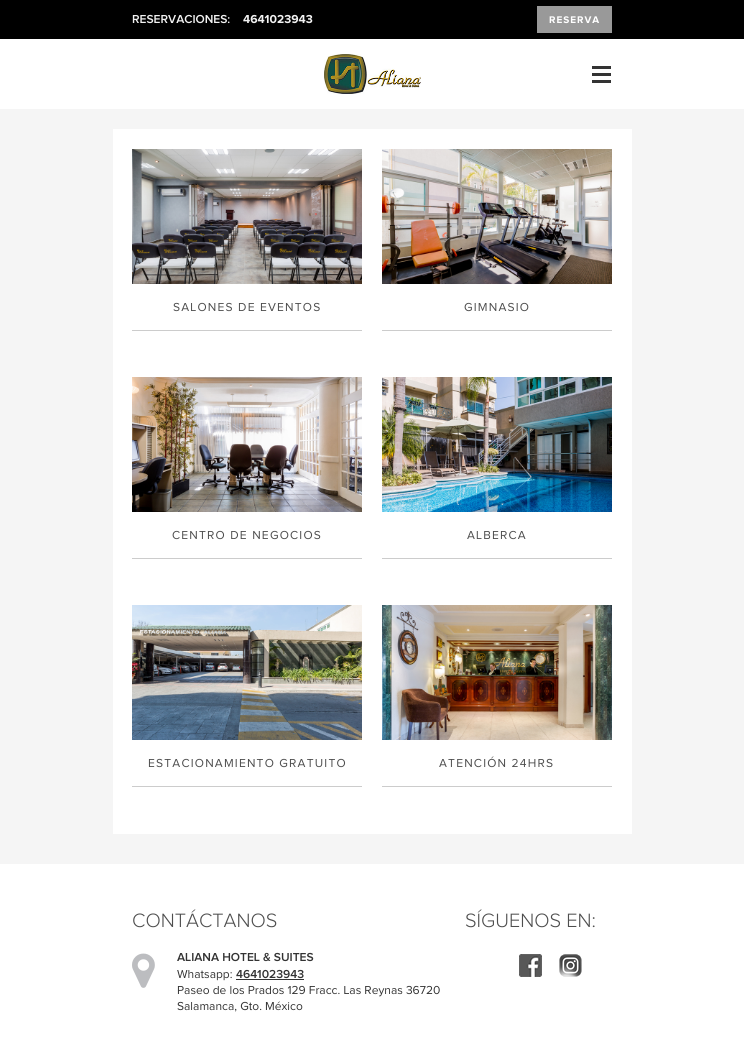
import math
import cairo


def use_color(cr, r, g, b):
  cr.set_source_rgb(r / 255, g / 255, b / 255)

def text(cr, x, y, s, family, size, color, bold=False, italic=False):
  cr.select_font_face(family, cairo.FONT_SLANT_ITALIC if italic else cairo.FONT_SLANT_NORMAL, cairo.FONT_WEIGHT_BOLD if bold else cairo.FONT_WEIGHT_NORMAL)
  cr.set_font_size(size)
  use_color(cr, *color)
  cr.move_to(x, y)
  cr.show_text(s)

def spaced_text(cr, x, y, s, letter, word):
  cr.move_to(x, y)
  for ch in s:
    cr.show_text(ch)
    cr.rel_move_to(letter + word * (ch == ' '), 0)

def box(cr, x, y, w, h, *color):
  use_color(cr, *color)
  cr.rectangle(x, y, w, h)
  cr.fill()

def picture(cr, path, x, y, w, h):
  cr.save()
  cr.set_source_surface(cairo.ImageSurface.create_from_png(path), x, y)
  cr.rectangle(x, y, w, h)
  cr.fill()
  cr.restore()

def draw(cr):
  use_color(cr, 255, 255, 255)
  cr.paint()
  box(cr, 0, 0, 744, 39, 0, 0, 0)
  box(cr, 537, 6, 75, 27, 153, 153, 153)
  picture(cr, "img_01.png", 324, 54, 97, 40)
  box(cr, 592, 66, 19, 3, 51, 51, 51)
  box(cr, 592, 73, 19, 3, 51, 51, 51)
  box(cr, 592, 80, 19, 3, 51, 51, 51)
  box(cr, 0, 109, 744, 755, 245, 245, 245)
  box(cr, 113, 129, 519, 705, 255, 255, 255)
  picture(cr, "img_02.png", 132, 149, 230, 135)
  box(cr, 132, 330, 230, 1, 204, 204, 204)
  picture(cr, "img_03.png", 382, 149, 230, 135)
  box(cr, 382, 330, 230, 1, 204, 204, 204)
  picture(cr, "img_04.png", 132, 377, 230, 135)
  box(cr, 132, 558, 230, 1, 204, 204, 204)
  picture(cr, "img_05.png", 382, 377, 230, 135)
  box(cr, 382, 558, 230, 1, 204, 204, 204)
  picture(cr, "img_06.png", 132, 605, 230, 135)
  box(cr, 132, 786, 230, 1, 204, 204, 204)
  picture(cr, "img_07.png", 382, 605, 230, 135)
  box(cr, 382, 786, 230, 1, 204, 204, 204)
  picture(cr, "img_08.png", 132, 953, 23, 35)
  box(cr, 236, 979, 68, 1, 51, 51, 51)
  picture(cr, "img_09.png", 519, 954, 23, 23)
  picture(cr, "img_10.png", 559, 954, 23, 23)
  text(cr, 132, 23, "RESERVACIONES:", "Proxima Nova SemiBold", 12, (242, 242, 242))
  text(cr, 243, 23, "4641023943", "Proxima Nova", 12, (242, 242, 242), bold=True)
  cr.set_font_size(10)
  use_color(cr, 255, 255, 255)
  spaced_text(cr, 549, 23, "RESERVA", 1, 0)
  cr.select_font_face("Proxima Nova")
  cr.set_font_size(12)
  use_color(cr, 78, 78, 78)
  spaced_text(cr, 173, 311, "SALONES DE EVENTOS", 1.2, 0)
  spaced_text(cr, 464, 311, "GIMNASIO", 1.2, 0)
  spaced_text(cr, 172, 539, "CENTRO DE NEGOCIOS", 1.2, 0)
  spaced_text(cr, 467, 539, "ALBERCA", 1.2, 0)
  spaced_text(cr, 148, 767, "ESTACIONAMIENTO GRATUITO", 1.2, 0)
  spaced_text(cr, 439, 767, "ATENCIÓN 24HRS", 1.2, 0)
  text(cr, 132, 927, "CONTÁCTANOS", "Proxima Nova Light", 20, (78, 78, 78))
  text(cr, 177, 961, "ALIANA HOTEL & SUITES", "Proxima Nova SemiBold", 12, (51, 51, 51))
  text(cr, 177, 978, "Whatsapp:", "Proxima Nova", 12, (51, 51, 51))
  text(cr, 236, 978, "4641023943", "Proxima Nova SemiBold", 12, (51, 51, 51))
  text(cr, 177, 994, "Paseo de los Prados 129 Fracc. Las Reynas 36720", "Proxima Nova", 12, (51, 51, 51))
  text(cr, 177, 1010, "Salamanca, Gto. México", "Proxima Nova", 12, (51, 51, 51))
  text(cr, 465, 927, "SÍGUENOS EN:", "Proxima Nova Light", 20, (78, 78, 78))


surface = cairo.ImageSurface(cairo.FORMAT_RGB24, 744, 1059)
cr = cairo.Context(surface)
options = cairo.FontOptions()
options.set_hint_metrics(cairo.HINT_METRICS_OFF)
options.set_hint_style(cairo.HINT_STYLE_NONE)
cr.set_font_options(options)
cr.set_miter_limit(4)
draw(cr)
surface.write_to_png("out.png")
